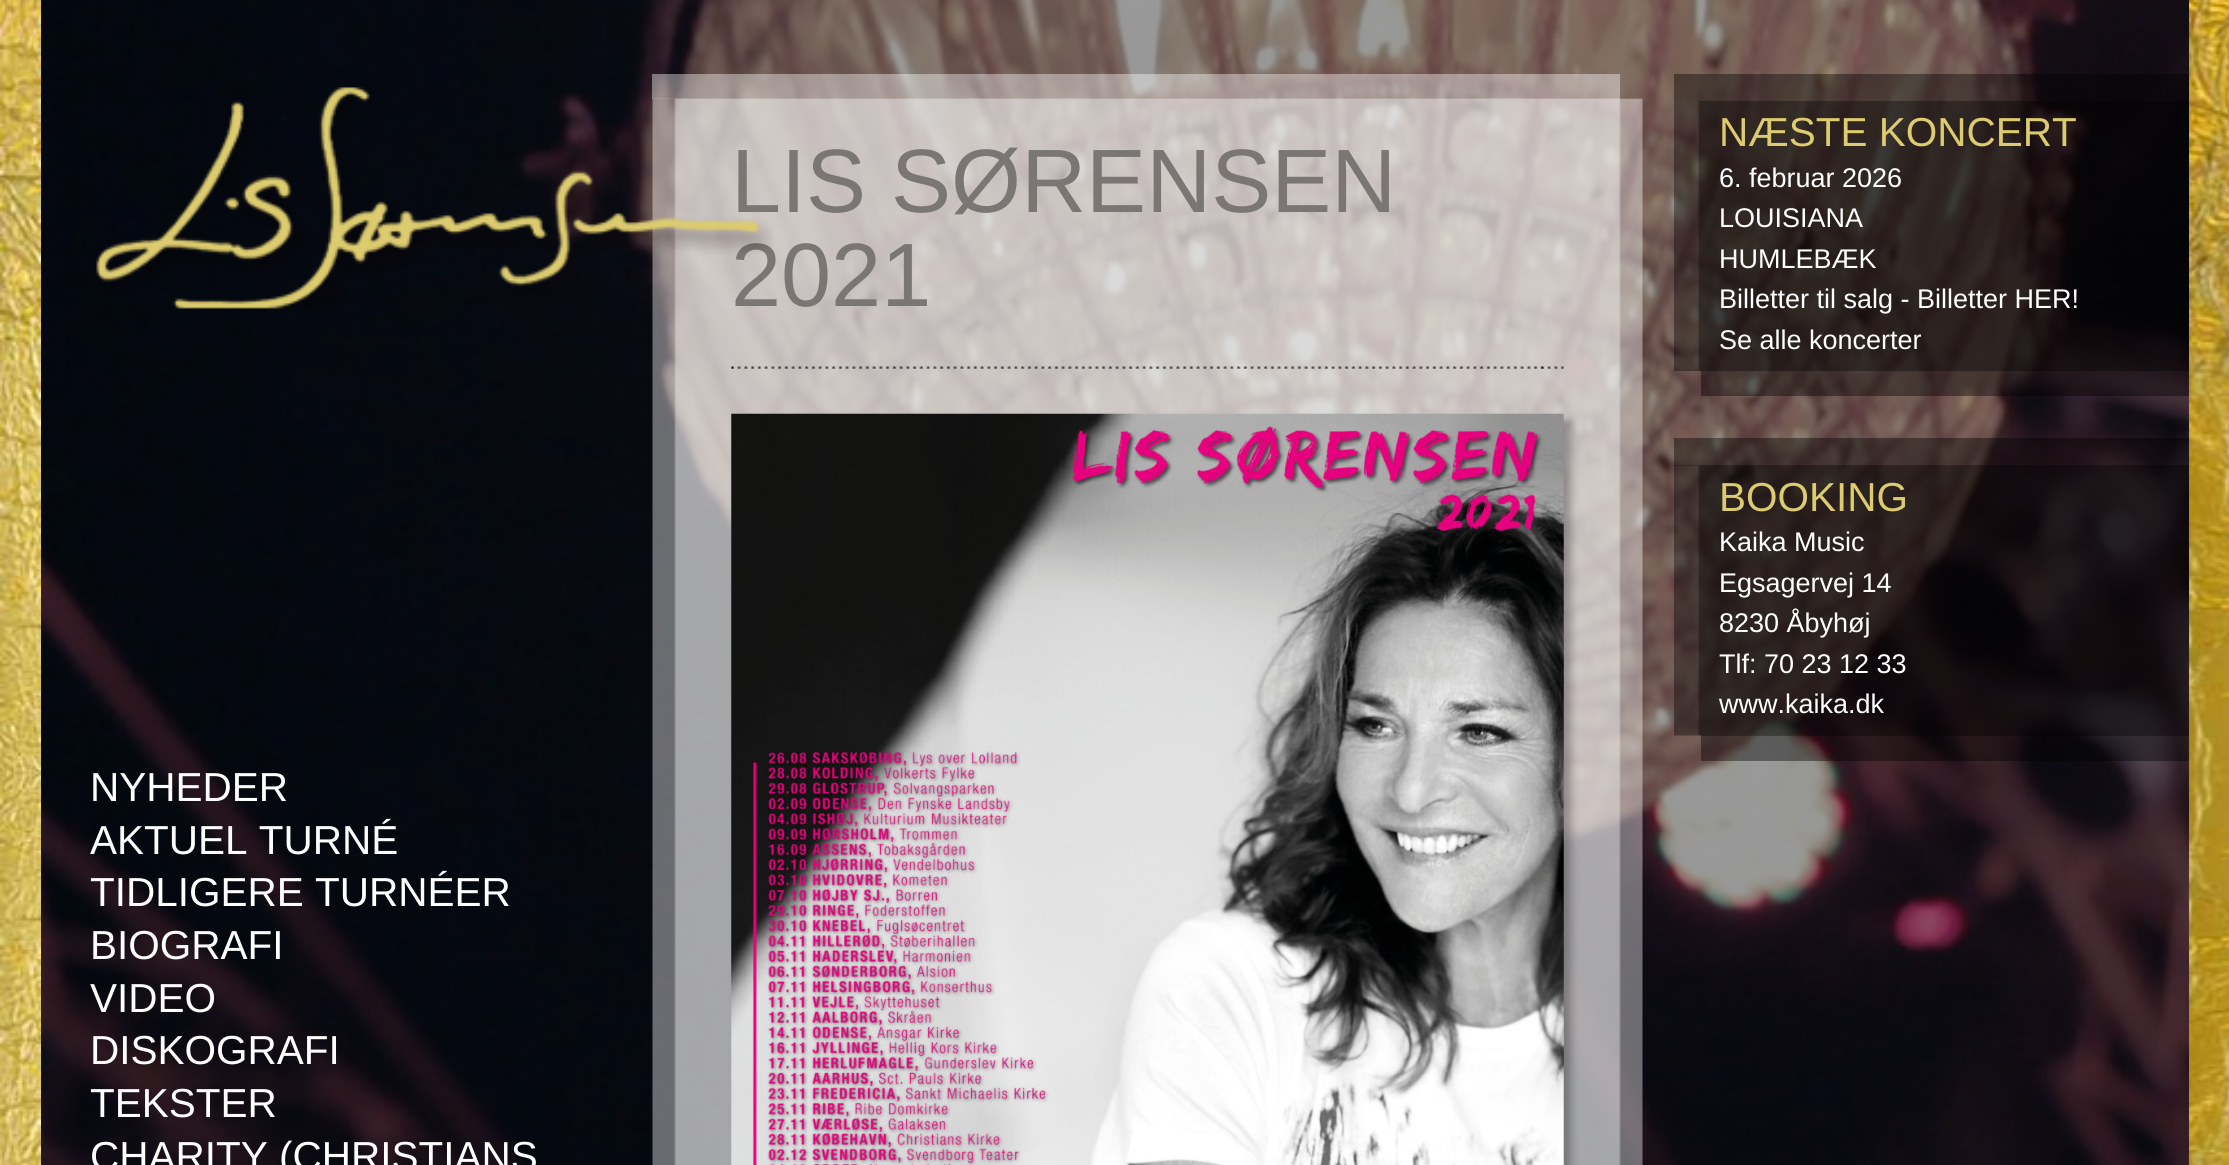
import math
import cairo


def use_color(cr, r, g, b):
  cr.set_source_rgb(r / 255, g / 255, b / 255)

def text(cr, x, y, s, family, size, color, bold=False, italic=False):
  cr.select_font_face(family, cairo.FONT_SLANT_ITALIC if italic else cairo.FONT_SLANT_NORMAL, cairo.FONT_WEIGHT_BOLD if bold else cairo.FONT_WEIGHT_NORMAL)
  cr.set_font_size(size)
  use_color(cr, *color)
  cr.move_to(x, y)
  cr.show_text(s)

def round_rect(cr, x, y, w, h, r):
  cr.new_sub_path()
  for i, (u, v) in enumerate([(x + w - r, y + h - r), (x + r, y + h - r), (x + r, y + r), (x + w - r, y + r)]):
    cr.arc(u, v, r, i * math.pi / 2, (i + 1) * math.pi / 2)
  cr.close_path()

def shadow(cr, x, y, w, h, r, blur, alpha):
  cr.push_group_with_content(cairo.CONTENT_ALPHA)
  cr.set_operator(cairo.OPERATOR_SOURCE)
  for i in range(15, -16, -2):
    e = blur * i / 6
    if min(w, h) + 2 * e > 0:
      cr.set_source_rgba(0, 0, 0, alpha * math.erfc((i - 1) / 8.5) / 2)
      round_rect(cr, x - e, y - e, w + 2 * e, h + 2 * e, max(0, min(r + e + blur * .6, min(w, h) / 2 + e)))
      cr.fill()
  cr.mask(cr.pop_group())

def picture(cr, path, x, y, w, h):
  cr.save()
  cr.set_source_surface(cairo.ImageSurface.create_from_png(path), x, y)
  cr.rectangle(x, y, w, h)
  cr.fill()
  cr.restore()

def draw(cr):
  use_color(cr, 255, 255, 255)
  cr.paint()
  picture(cr, "img_01.png", 0, 0, 41, 1165)
  picture(cr, "img_02.png", 41, 0, 2148, 1165)
  picture(cr, "img_03.png", 41, 0, 2148, 1165)
  picture(cr, "img_04.png", 2189, 0, 40, 1165)
  cr.set_source_rgba(1, 1, 1, 0.4)
  cr.rectangle(652, 74, 968, 25)
  cr.fill()
  picture(cr, "img_06.png", 652, 98, 991, 1067)
  picture(cr, "img_07.png", 731, 366, 833, 3)
  use_color(cr, 0, 0, 0)
  shadow(cr, 738, 421, 833, 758, 0, 4.5, 0.3)
  picture(cr, "img_08.png", 731, 413, 833, 752)
  cr.set_source_rgba(0, 0, 0, 0.4)
  cr.rectangle(1674, 74, 515, 27)
  cr.fill()
  picture(cr, "img_09.png", 1674, 101, 515, 270)
  cr.rectangle(1701, 371, 488, 25)
  cr.fill()
  cr.rectangle(1674, 438, 515, 28)
  cr.fill()
  picture(cr, "img_10.png", 1674, 465, 515, 271)
  cr.rectangle(1701, 735, 488, 26)
  cr.fill()
  text(cr, 731, 212, "LIS SØRENSEN", "Liberation Sans", 90, (122, 118, 116))
  text(cr, 731, 306, "2021", "Liberation Sans", 90, (122, 118, 116))
  picture(cr, "img_05.png", 96, 87, 678, 222)
  text(cr, 1719, 146, "NÆSTE KONCERT", "Liberation Sans", 40.5, (220, 203, 111))
  text(cr, 1719, 187, "6. februar 2026", "Liberation Sans", 27, (255, 255, 255))
  text(cr, 1719, 227, "LOUISIANA", "Liberation Sans", 27, (255, 255, 255))
  text(cr, 1719, 268, "HUMLEBÆK", "Liberation Sans", 27, (255, 255, 255))
  text(cr, 1719, 308, "Billetter til salg - Billetter HER!", "Liberation Sans", 27, (255, 255, 255))
  text(cr, 1719, 349, "Se alle koncerter", "Liberation Sans", 27, (255, 255, 255))
  text(cr, 1719, 511, "BOOKING", "Liberation Sans", 40.5, (220, 203, 111))
  text(cr, 1719, 551, "Kaika Music", "Liberation Sans", 27, (255, 255, 255))
  text(cr, 1719, 592, "Egsagervej 14", "Liberation Sans", 27, (255, 255, 255))
  text(cr, 1719, 632, "8230 Åbyhøj", "Liberation Sans", 27, (255, 255, 255))
  text(cr, 1719, 673, "Tlf: 70 23 12 33", "Liberation Sans", 27, (255, 255, 255))
  text(cr, 1719, 713, "www.kaika.dk", "Liberation Sans", 27, (255, 255, 255))
  text(cr, 90, 801, "NYHEDER", "Liberation Sans", 40.5, (255, 255, 255))
  text(cr, 90, 854, "AKTUEL TURNÉ", "Liberation Sans", 40.5, (255, 255, 255))
  text(cr, 90, 906, "TIDLIGERE TURNÉER", "Liberation Sans", 40.5, (255, 255, 255))
  text(cr, 90, 959, "BIOGRAFI", "Liberation Sans", 40.5, (255, 255, 255))
  text(cr, 90, 1012, "VIDEO", "Liberation Sans", 40.5, (255, 255, 255))
  text(cr, 90, 1064, "DISKOGRAFI", "Liberation Sans", 40.5, (255, 255, 255))
  text(cr, 90, 1117, "TEKSTER", "Liberation Sans", 40.5, (255, 255, 255))
  text(cr, 90, 1170, "CHARITY (CHRISTIANS", "Liberation Sans", 40.5, (255, 255, 255))


surface = cairo.ImageSurface(cairo.FORMAT_RGB24, 2229, 1165)
cr = cairo.Context(surface)
options = cairo.FontOptions()
options.set_hint_metrics(cairo.HINT_METRICS_OFF)
options.set_hint_style(cairo.HINT_STYLE_NONE)
cr.set_font_options(options)
cr.set_miter_limit(4)
draw(cr)
surface.write_to_png("out.png")
